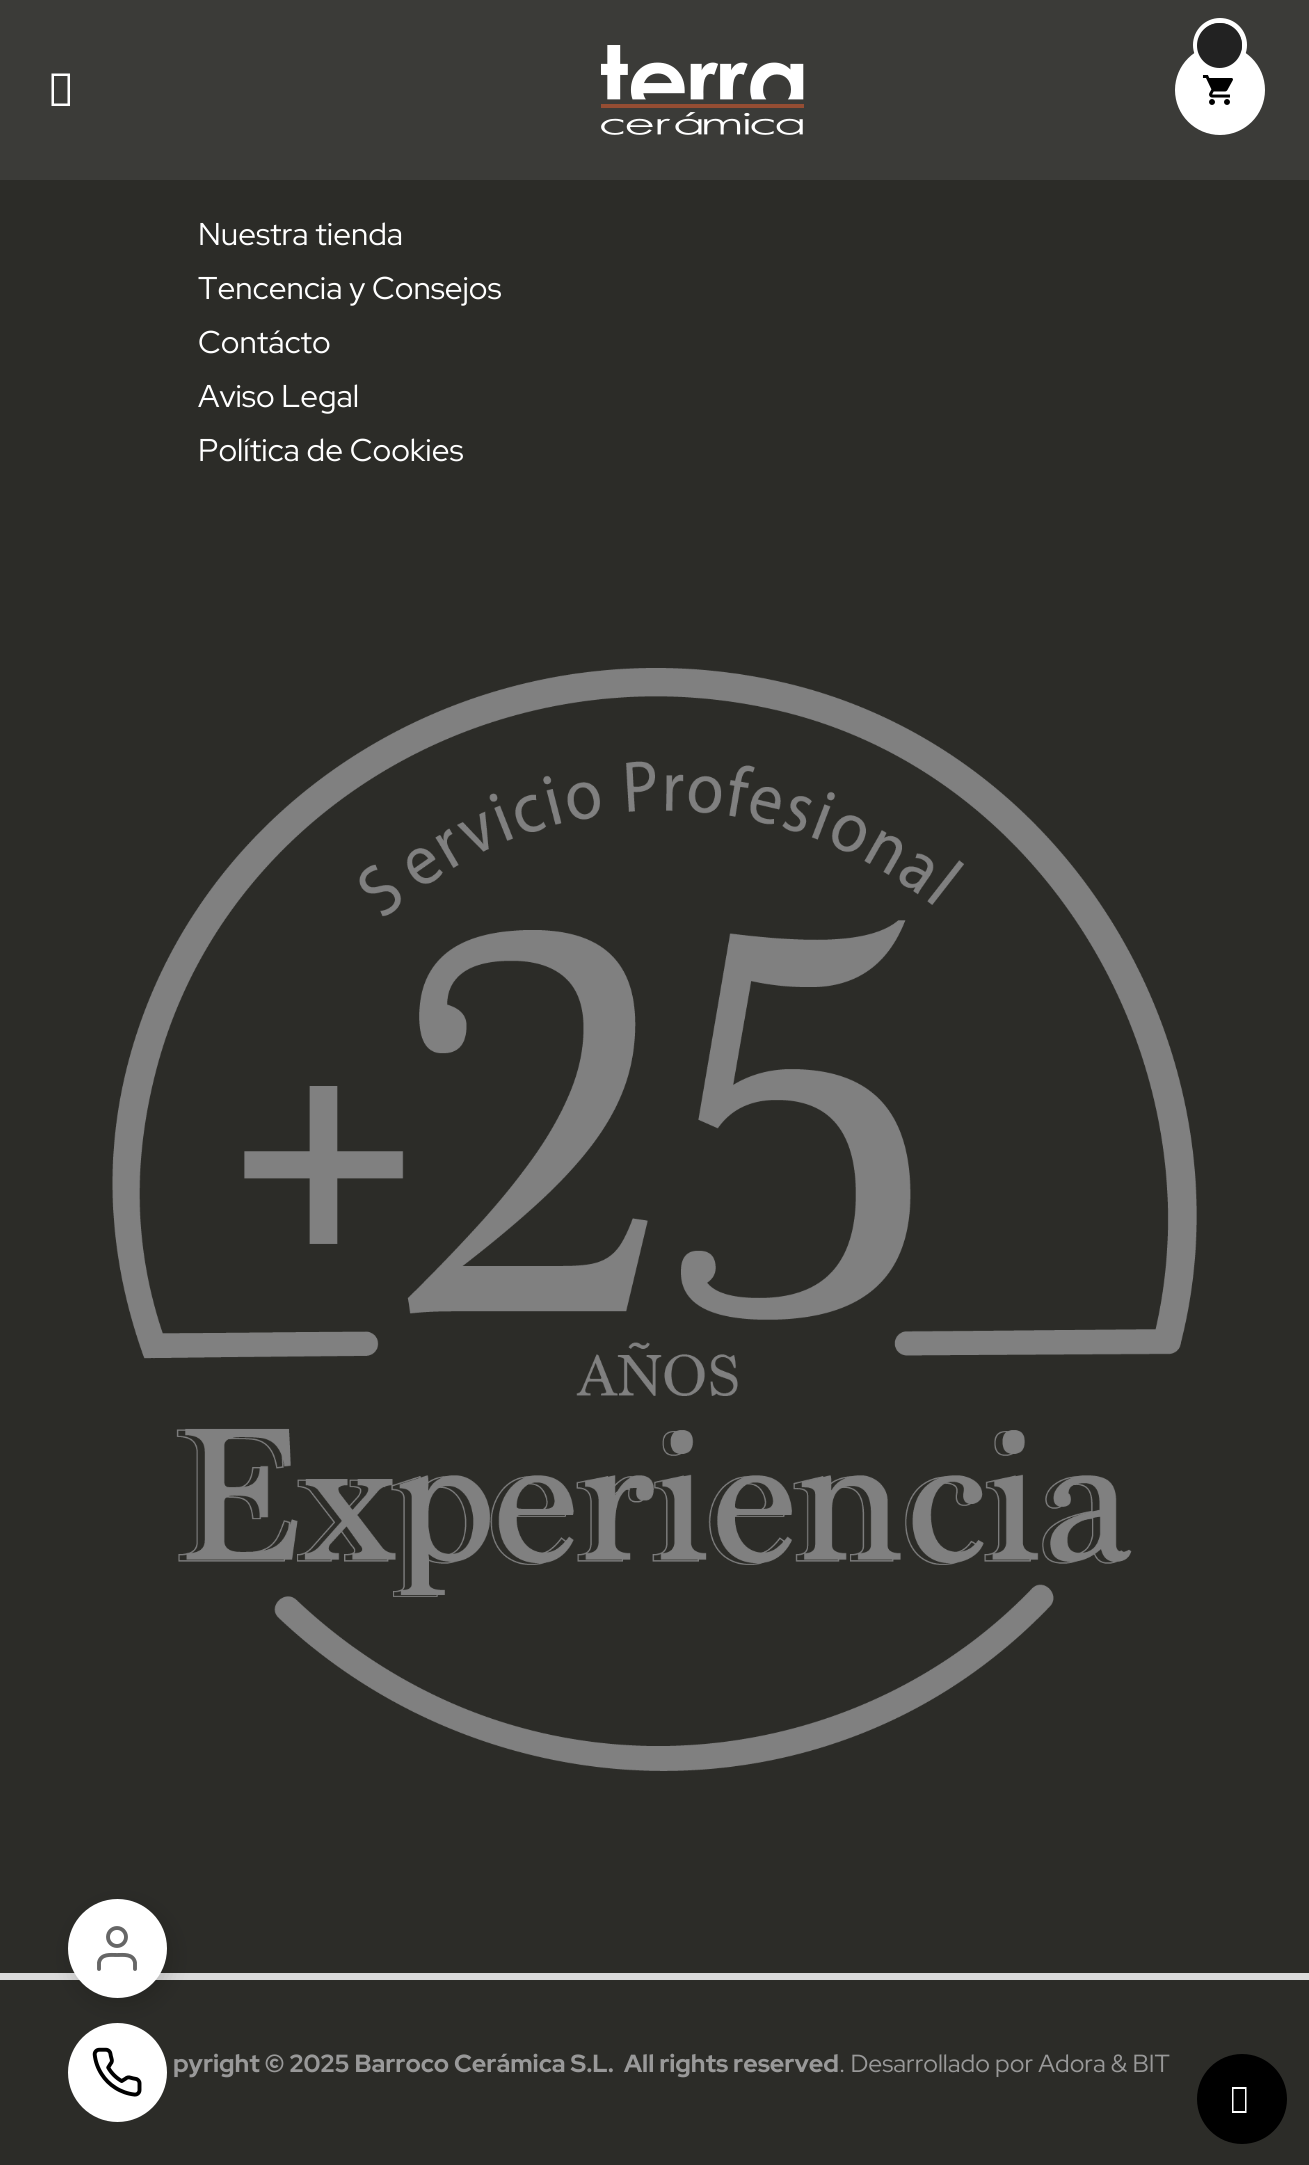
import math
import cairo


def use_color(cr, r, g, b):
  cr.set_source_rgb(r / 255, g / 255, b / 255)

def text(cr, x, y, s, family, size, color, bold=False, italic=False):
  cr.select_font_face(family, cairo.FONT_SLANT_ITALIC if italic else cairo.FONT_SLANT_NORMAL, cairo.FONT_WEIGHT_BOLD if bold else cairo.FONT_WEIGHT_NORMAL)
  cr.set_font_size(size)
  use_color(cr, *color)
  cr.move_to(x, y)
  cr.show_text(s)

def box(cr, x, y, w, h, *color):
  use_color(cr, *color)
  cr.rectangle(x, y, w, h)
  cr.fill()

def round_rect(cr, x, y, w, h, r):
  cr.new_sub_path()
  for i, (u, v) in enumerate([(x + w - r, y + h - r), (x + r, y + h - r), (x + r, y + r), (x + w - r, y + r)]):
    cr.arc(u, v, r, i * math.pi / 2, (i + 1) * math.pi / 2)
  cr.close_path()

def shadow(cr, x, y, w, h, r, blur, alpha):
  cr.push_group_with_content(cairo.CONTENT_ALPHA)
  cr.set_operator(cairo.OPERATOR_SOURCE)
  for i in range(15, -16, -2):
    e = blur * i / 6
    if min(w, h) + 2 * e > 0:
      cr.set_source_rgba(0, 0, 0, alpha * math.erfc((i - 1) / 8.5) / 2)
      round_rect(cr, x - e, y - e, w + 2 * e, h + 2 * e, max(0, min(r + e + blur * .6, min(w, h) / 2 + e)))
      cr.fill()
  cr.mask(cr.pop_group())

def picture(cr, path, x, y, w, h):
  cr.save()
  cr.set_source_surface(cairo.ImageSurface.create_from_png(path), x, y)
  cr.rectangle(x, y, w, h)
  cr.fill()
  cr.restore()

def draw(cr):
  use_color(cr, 44, 44, 40)
  cr.paint()
  box(cr, 0, 0, 1309, 180, 59, 59, 56)
  use_color(cr, 255, 255, 255)
  cr.arc(1220, 90, 45, 0, 2 * math.pi)
  cr.fill()
  cr.arc(1220, 45, 24.5, 0, 2 * math.pi)
  cr.set_line_width(5)
  cr.stroke()
  use_color(cr, 34, 34, 34)
  cr.arc(1219.5, 45.5, 22.5, 0, 2 * math.pi)
  cr.fill()
  picture(cr, "img_01.png", 1202, 75, 31, 30)
  use_color(cr, 255, 255, 255)
  cr.arc(117.5, 2072.5, 49.5, 0, 2 * math.pi)
  cr.fill()
  box(cr, 0, 1973, 1309, 7, 219, 219, 219)
  use_color(cr, 0, 0, 0)
  shadow(cr, 72, 1906, 99, 99, 49.5, 11, 0.15)
  use_color(cr, 255, 255, 255)
  cr.arc(117.5, 1948.5, 49.5, 0, 2 * math.pi)
  cr.fill()
  cr.new_path()
  cr.move_to(135, 1969)
  cr.line_to(135, 1962.5)
  cr.curve_to(133, 1953.5, 123.5, 1955, 117, 1955)
  cr.curve_to(110.5, 1955, 101, 1953.5, 99, 1962.5)
  cr.line_to(99, 1969)
  use_color(cr, 102, 102, 102)
  cr.set_line_width(3.9)
  cr.set_line_cap(cairo.LINE_CAP_ROUND)
  cr.set_line_join(cairo.LINE_JOIN_ROUND)
  cr.stroke()
  cr.arc(117, 1937, 9, 0, 2 * math.pi)
  cr.set_line_cap(cairo.LINE_CAP_BUTT)
  cr.set_line_join(cairo.LINE_JOIN_MITER)
  cr.stroke()
  use_color(cr, 255, 255, 255)
  cr.new_path()
  cr.move_to(51.5, 106)
  cr.line_to(51.5, 73.5)
  cr.line_to(70, 73.5)
  cr.line_to(70, 106)
  cr.close_path()
  cr.move_to(54, 103.5)
  cr.line_to(67.5, 103.5)
  cr.line_to(67.5, 76)
  cr.line_to(54, 76)
  cr.close_path()
  cr.fill()
  picture(cr, "img_02.png", 92, 2047, 50, 50)
  picture(cr, "img_03.png", 601, 45, 203, 90)
  picture(cr, "img_04.png", 112, 668, 1085, 1103)
  use_color(cr, 0, 0, 0)
  cr.arc(1242, 2099, 45, 0, 2 * math.pi)
  cr.fill()
  use_color(cr, 255, 255, 255)
  cr.new_path()
  cr.move_to(1232, 2113)
  cr.line_to(1232, 2087)
  cr.line_to(1246.5, 2087)
  cr.line_to(1246.5, 2113)
  cr.close_path()
  cr.move_to(1233.5, 2111)
  cr.line_to(1245, 2111)
  cr.line_to(1245, 2089)
  cr.line_to(1233.5, 2089)
  cr.close_path()
  cr.fill()
  text(cr, 198, 245, "Nuestra tienda", "Red Hat Display", 31.5, (255, 255, 255))
  text(cr, 198, 299, "Tencencia y Consejos", "Red Hat Display", 31.5, (255, 255, 255))
  text(cr, 198, 353, "Contácto", "Red Hat Display", 31.5, (255, 255, 255))
  text(cr, 198, 407, "Aviso Legal", "Red Hat Display", 31.5, (255, 255, 255))
  text(cr, 198, 461, "Política de Cookies", "Red Hat Display", 31.5, (255, 255, 255))
  text(cr, 173, 2072, "pyright © 2025 Barroco Cerámica S.L.  All rights reserved", "Red Hat Display", 24.75, (153, 153, 153), bold=True)
  text(cr, 839, 2072, ". Desarrollado por Adora & BIT", "Red Hat Display", 24.75, (153, 153, 153))


surface = cairo.ImageSurface(cairo.FORMAT_RGB24, 1309, 2165)
cr = cairo.Context(surface)
options = cairo.FontOptions()
options.set_hint_metrics(cairo.HINT_METRICS_OFF)
options.set_hint_style(cairo.HINT_STYLE_NONE)
cr.set_font_options(options)
cr.set_miter_limit(4)
draw(cr)
surface.write_to_png("out.png")
